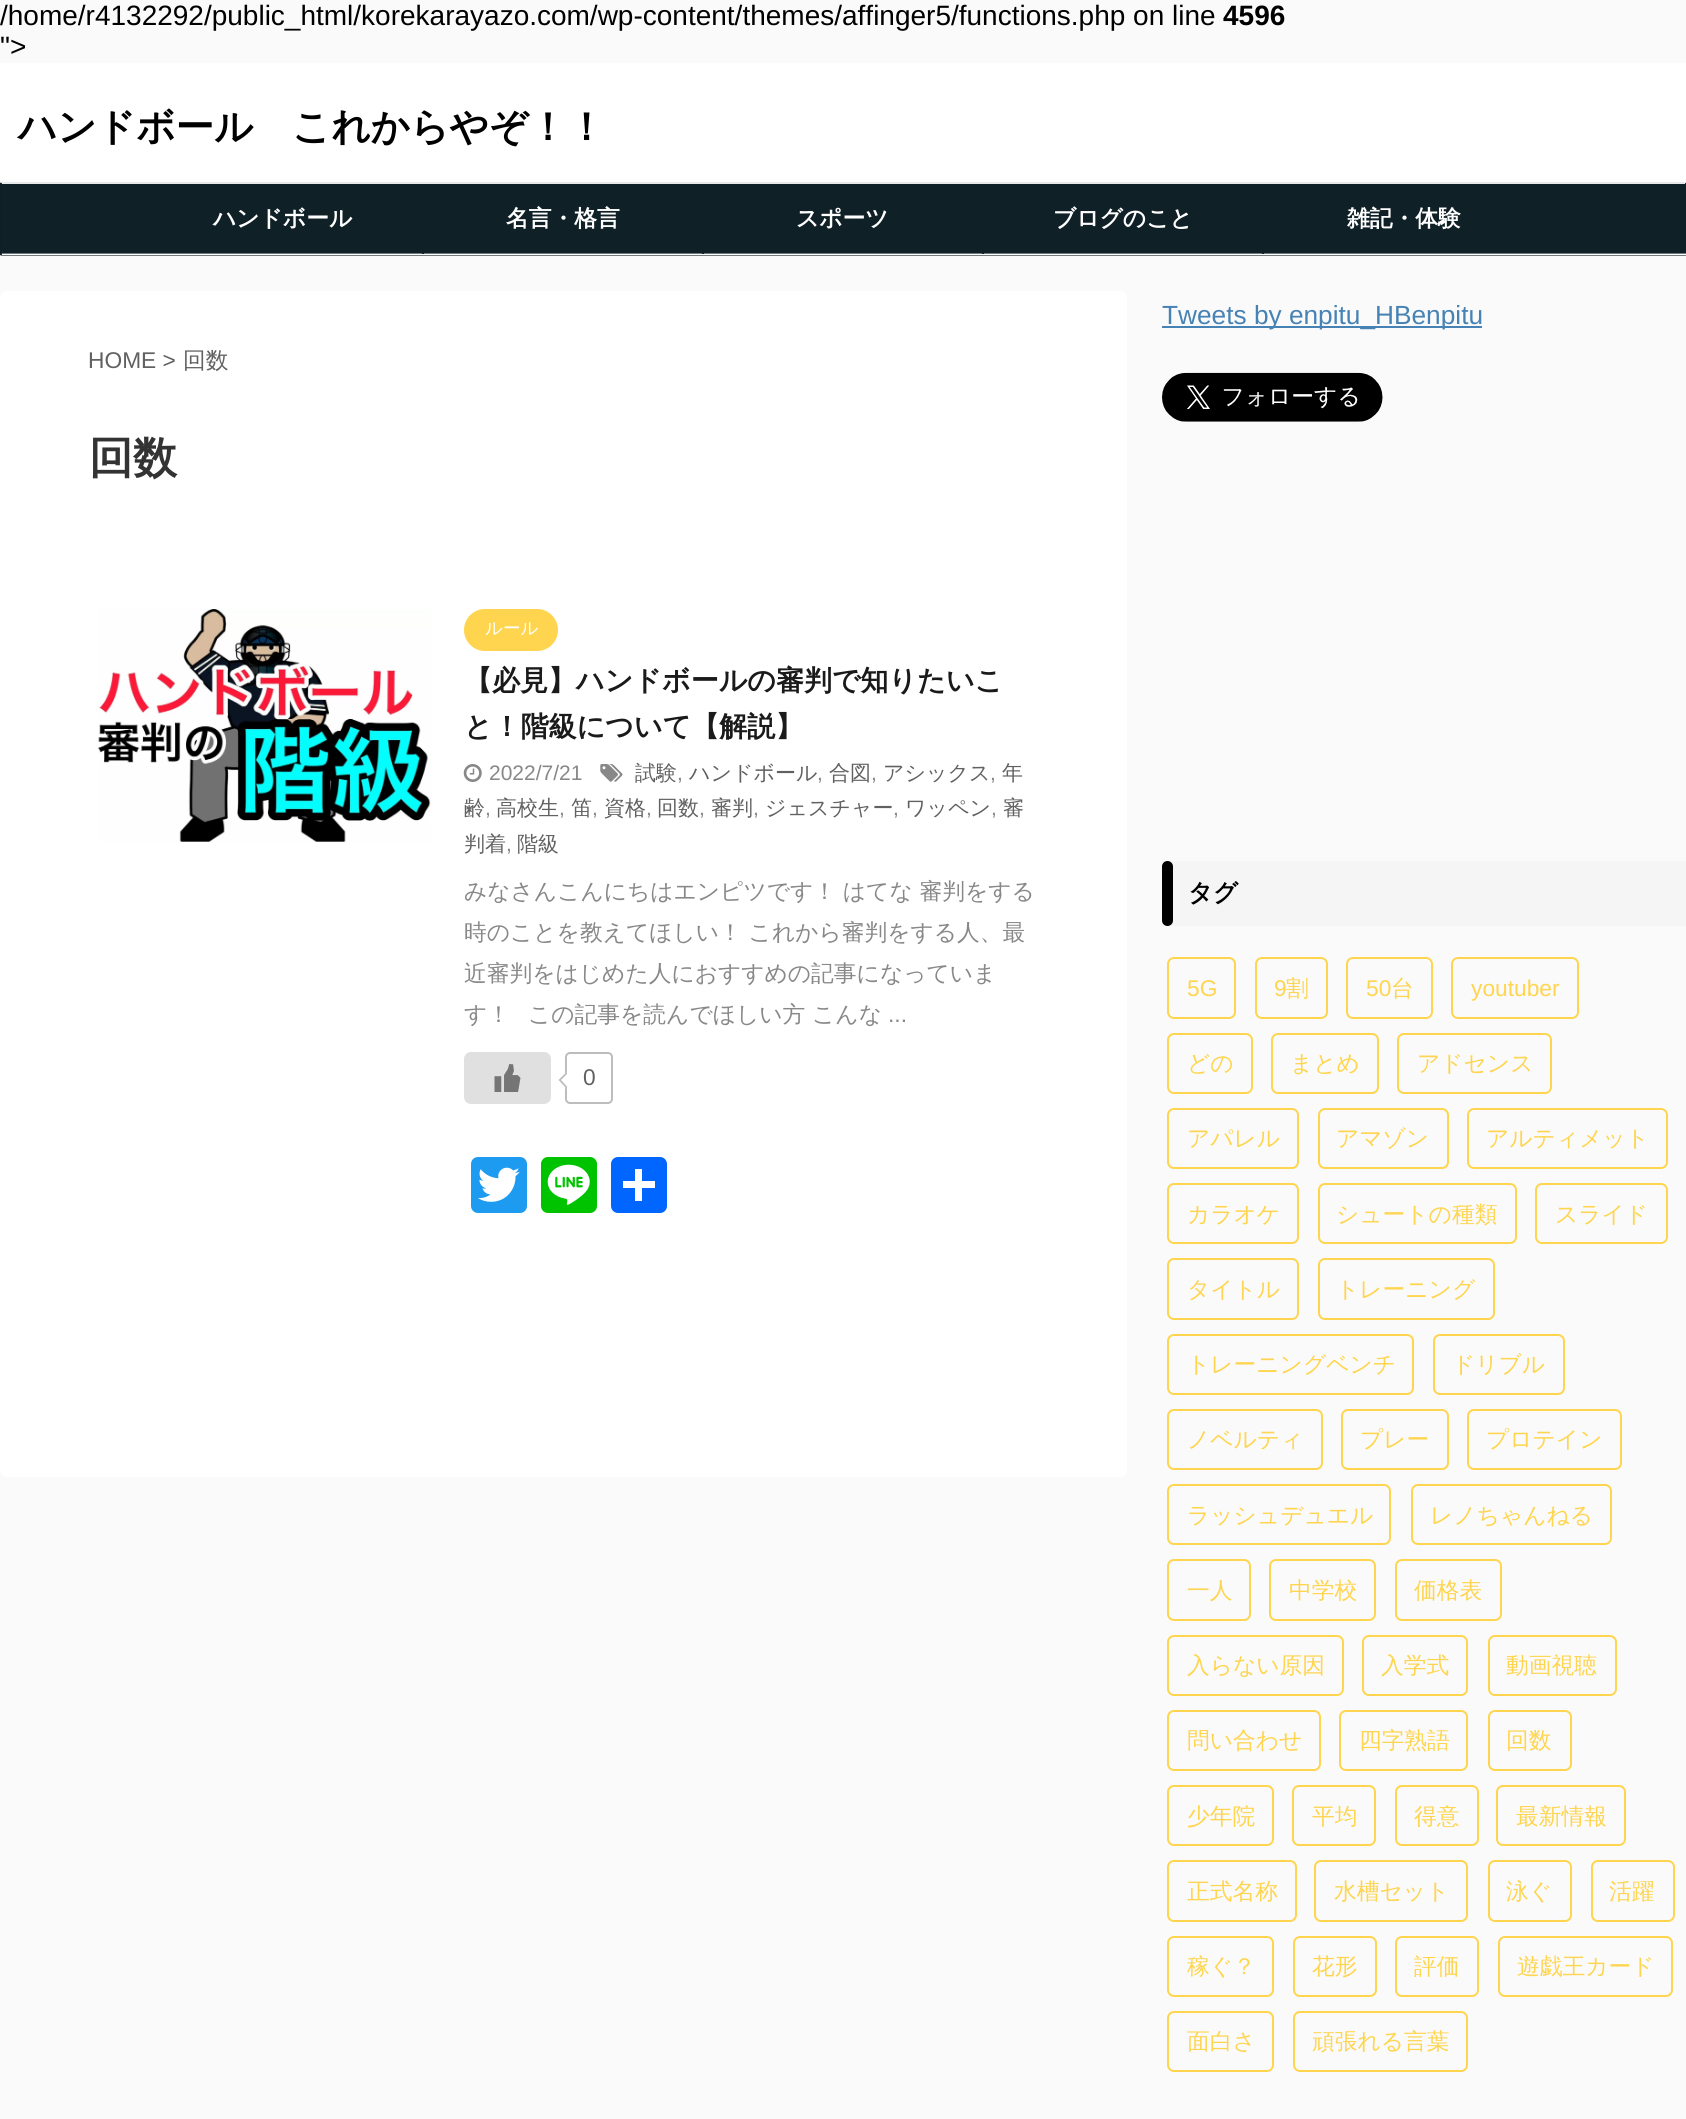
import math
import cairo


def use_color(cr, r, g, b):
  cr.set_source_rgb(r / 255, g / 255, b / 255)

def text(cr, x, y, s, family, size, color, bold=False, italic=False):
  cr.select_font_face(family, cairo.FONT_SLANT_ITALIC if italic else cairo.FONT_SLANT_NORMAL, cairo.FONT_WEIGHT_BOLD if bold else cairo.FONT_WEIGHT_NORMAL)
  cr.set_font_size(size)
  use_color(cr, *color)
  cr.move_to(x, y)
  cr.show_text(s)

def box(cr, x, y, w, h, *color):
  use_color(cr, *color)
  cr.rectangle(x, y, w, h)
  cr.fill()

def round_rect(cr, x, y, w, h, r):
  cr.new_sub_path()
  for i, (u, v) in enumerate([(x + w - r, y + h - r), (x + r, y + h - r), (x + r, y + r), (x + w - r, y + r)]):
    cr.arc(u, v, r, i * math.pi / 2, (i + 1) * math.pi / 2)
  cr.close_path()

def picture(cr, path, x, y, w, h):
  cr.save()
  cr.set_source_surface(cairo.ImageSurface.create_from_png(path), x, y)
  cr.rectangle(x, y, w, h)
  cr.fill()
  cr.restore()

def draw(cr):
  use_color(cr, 250, 250, 250)
  cr.paint()
  box(cr, 0, 63, 1686, 119, 255, 255, 255)
  use_color(cr, 16, 32, 39)
  round_rect(cr, 0, 182, 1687, 74, 2)
  cr.fill()
  cr.set_source_rgba(1, 1, 1, 0.9)
  cr.rectangle(1, 182, 1685, 2)
  cr.fill()
  cr.set_source_rgba(0.063, 0.125, 0.153, 0.9)
  cr.rectangle(1685, 183, 1, 1)
  cr.fill()
  cr.new_path()
  cr.move_to(1686, 254.5)
  cr.line_to(1, 254.5)
  use_color(cr, 255, 255, 255)
  cr.set_line_width(1.8)
  cr.stroke()
  cr.set_source_rgba(0.063, 0.125, 0.153, 0.9)
  cr.rectangle(0, 183, 2, 72)
  cr.fill()
  box(cr, 422, 253, 2, 1, 16, 32, 39)
  box(cr, 702, 253, 2, 1, 16, 32, 39)
  box(cr, 982, 253, 2, 1, 16, 32, 39)
  box(cr, 1262, 253, 2, 1, 16, 32, 39)
  use_color(cr, 255, 255, 255)
  round_rect(cr, 0, 291, 1127, 1186, 7)
  cr.fill()
  picture(cr, "img_01.png", 98, 609, 333, 233)
  use_color(cr, 255, 213, 79)
  round_rect(cr, 464, 609, 94, 42, 21)
  cr.fill()
  picture(cr, "img_02.png", 600, 764, 23, 18)
  picture(cr, "img_03.png", 463, 764, 19, 18)
  use_color(cr, 224, 224, 224)
  round_rect(cr, 464, 1052, 87, 52, 7)
  cr.fill()
  picture(cr, "img_04.png", 494, 1064, 27, 28)
  round_rect(cr, 566, 1053, 46, 50, 4)
  use_color(cr, 189, 189, 189)
  cr.set_line_width(2)
  cr.stroke()
  use_color(cr, 255, 255, 255)
  cr.new_path()
  cr.move_to(567, 1071.5)
  cr.line_to(575.5, 1080)
  cr.line_to(567, 1089)
  cr.line_to(558.5, 1080)
  cr.close_path()
  cr.fill()
  use_color(cr, 189, 189, 189)
  cr.new_path()
  cr.move_to(567, 1089)
  cr.line_to(558.5, 1080)
  cr.line_to(561, 1080)
  cr.line_to(567, 1086.5)
  cr.close_path()
  cr.move_to(558.5, 1080)
  cr.line_to(567, 1071.5)
  cr.line_to(567, 1074)
  cr.line_to(561, 1080)
  cr.close_path()
  cr.fill()
  use_color(cr, 29, 155, 240)
  round_rect(cr, 471, 1157, 56, 56, 7)
  cr.fill()
  picture(cr, "img_05.png", 478, 1167, 42, 35)
  use_color(cr, 0, 195, 0)
  round_rect(cr, 541, 1157, 56, 56, 7)
  cr.fill()
  picture(cr, "img_06.png", 547, 1164, 43, 41)
  use_color(cr, 1, 102, 255)
  round_rect(cr, 611, 1157, 56, 56, 7)
  cr.fill()
  box(cr, 635, 1169, 7, 32, 255, 255, 255)
  box(cr, 623, 1181, 32, 7, 255, 255, 255)
  box(cr, 1162, 326, 320, 2, 70, 130, 180)
  picture(cr, "img_07.png", 1162, 372, 221, 50)
  box(cr, 1162, 861, 524, 65, 245, 245, 245)
  use_color(cr, 0, 0, 0)
  round_rect(cr, 1162, 861, 11, 65, 5.5)
  cr.fill()
  round_rect(cr, 1168, 958, 67, 60, 6)
  use_color(cr, 255, 213, 79)
  cr.stroke()
  round_rect(cr, 1256, 958, 71, 60, 6)
  cr.stroke()
  round_rect(cr, 1347, 958, 85, 60, 6)
  cr.stroke()
  round_rect(cr, 1452, 958, 126, 60, 6)
  cr.stroke()
  round_rect(cr, 1168, 1034, 84, 59, 6)
  cr.stroke()
  round_rect(cr, 1272, 1034, 106, 59, 6)
  cr.stroke()
  round_rect(cr, 1398, 1034, 153, 59, 6)
  cr.stroke()
  round_rect(cr, 1168, 1109, 130, 59, 6)
  cr.stroke()
  round_rect(cr, 1319, 1109, 129, 59, 6)
  cr.stroke()
  round_rect(cr, 1468, 1109, 199, 59, 6)
  cr.stroke()
  round_rect(cr, 1168, 1184, 130, 59, 6)
  cr.stroke()
  round_rect(cr, 1319, 1184, 197, 59, 6)
  cr.stroke()
  round_rect(cr, 1536, 1184, 131, 59, 6)
  cr.stroke()
  round_rect(cr, 1168, 1259, 130, 60, 6)
  cr.stroke()
  round_rect(cr, 1319, 1259, 175, 60, 6)
  cr.stroke()
  round_rect(cr, 1168, 1335, 245, 59, 6)
  cr.stroke()
  round_rect(cr, 1434, 1335, 130, 59, 6)
  cr.stroke()
  round_rect(cr, 1168, 1410, 154, 59, 6)
  cr.stroke()
  round_rect(cr, 1342, 1410, 106, 59, 6)
  cr.stroke()
  round_rect(cr, 1468, 1410, 153, 59, 6)
  cr.stroke()
  round_rect(cr, 1168, 1485, 222, 59, 6)
  cr.stroke()
  round_rect(cr, 1412, 1485, 199, 59, 6)
  cr.stroke()
  round_rect(cr, 1168, 1560, 82, 60, 6)
  cr.stroke()
  round_rect(cr, 1270, 1560, 105, 60, 6)
  cr.stroke()
  round_rect(cr, 1396, 1560, 105, 60, 6)
  cr.stroke()
  round_rect(cr, 1168, 1636, 175, 59, 6)
  cr.stroke()
  round_rect(cr, 1363, 1636, 104, 59, 6)
  cr.stroke()
  round_rect(cr, 1489, 1636, 127, 59, 6)
  cr.stroke()
  round_rect(cr, 1168, 1711, 152, 59, 6)
  cr.stroke()
  round_rect(cr, 1340, 1711, 127, 59, 6)
  cr.stroke()
  round_rect(cr, 1489, 1711, 82, 59, 6)
  cr.stroke()
  round_rect(cr, 1168, 1786, 105, 59, 6)
  cr.stroke()
  round_rect(cr, 1293, 1786, 82, 59, 6)
  cr.stroke()
  round_rect(cr, 1396, 1786, 82, 59, 6)
  cr.stroke()
  round_rect(cr, 1497, 1786, 128, 59, 6)
  cr.stroke()
  round_rect(cr, 1168, 1861, 128, 60, 6)
  cr.stroke()
  round_rect(cr, 1315, 1861, 152, 60, 6)
  cr.stroke()
  round_rect(cr, 1489, 1861, 82, 60, 6)
  cr.stroke()
  round_rect(cr, 1592, 1861, 82, 60, 6)
  cr.stroke()
  round_rect(cr, 1168, 1937, 105, 59, 6)
  cr.stroke()
  round_rect(cr, 1294, 1937, 82, 59, 6)
  cr.stroke()
  round_rect(cr, 1396, 1937, 82, 59, 6)
  cr.stroke()
  round_rect(cr, 1499, 1937, 173, 59, 6)
  cr.stroke()
  round_rect(cr, 1168, 2012, 105, 59, 6)
  cr.stroke()
  round_rect(cr, 1294, 2012, 173, 59, 6)
  cr.stroke()
  text(cr, 0, 25, "/home/r4132292/public_html/korekarayazo.com/wp-content/themes/affinger5/functions.php on line", "Liberation Sans", 28, (0, 0, 0))
  text(cr, 1223, 25, "4596", "Liberation Sans", 28, (0, 0, 0), bold=True)
  text(cr, 0, 56, "\">", "Liberation Sans", 28, (0, 0, 0))
  text(cr, 18, 140, "ハンドボール　これからやぞ！！", "WenQuanYi Zen Hei", 38.5, (0, 0, 0), bold=True)
  text(cr, 213, 226, "ハンドボール", "WenQuanYi Zen Hei", 22.75, (255, 255, 255), bold=True)
  text(cr, 506, 226, "名言・格言", "WenQuanYi Zen Hei", 22.75, (255, 255, 255), bold=True)
  text(cr, 796, 226, "スポーツ", "WenQuanYi Zen Hei", 22.75, (255, 255, 255), bold=True)
  text(cr, 1053, 226, "ブログのこと", "WenQuanYi Zen Hei", 22.75, (255, 255, 255), bold=True)
  text(cr, 1347, 226, "雑記・体験", "WenQuanYi Zen Hei", 22.75, (255, 255, 255), bold=True)
  text(cr, 88, 368, "HOME >", "Liberation Sans", 22.75, (97, 97, 97))
  text(cr, 183, 368, "回数", "WenQuanYi Zen Hei Medium", 22.75, (97, 97, 97))
  text(cr, 89, 473, "回数", "WenQuanYi Zen Hei", 44, (51, 51, 51), bold=True)
  text(cr, 485, 634, "ルール", "WenQuanYi Zen Hei Medium", 17.5, (255, 255, 255))
  text(cr, 464, 690, "【必見】ハンドボールの審判で知りたいこ", "WenQuanYi Zen Hei", 28, (26, 26, 26), bold=True)
  text(cr, 464, 736, "と！階級について【解説】", "WenQuanYi Zen Hei", 28, (26, 26, 26), bold=True)
  text(cr, 635, 780, "試験", "WenQuanYi Zen Hei Medium", 21, (97, 97, 97))
  text(cr, 677, 780, ",", "Liberation Sans", 21, (136, 136, 136))
  text(cr, 689, 780, "ハンドボール", "WenQuanYi Zen Hei Medium", 21, (97, 97, 97))
  text(cr, 817, 780, ",", "Liberation Sans", 21, (136, 136, 136))
  text(cr, 829, 780, "合図", "WenQuanYi Zen Hei Medium", 21, (97, 97, 97))
  text(cr, 871, 780, ",", "Liberation Sans", 21, (136, 136, 136))
  text(cr, 883, 780, "アシックス", "WenQuanYi Zen Hei Medium", 21, (97, 97, 97))
  text(cr, 990, 780, ",", "Liberation Sans", 21, (136, 136, 136))
  text(cr, 1002, 780, "年", "WenQuanYi Zen Hei Medium", 21, (97, 97, 97))
  text(cr, 464, 815, "齢", "WenQuanYi Zen Hei Medium", 21, (97, 97, 97))
  text(cr, 485, 815, ",", "Liberation Sans", 21, (136, 136, 136))
  text(cr, 496, 815, "高校生", "WenQuanYi Zen Hei Medium", 21, (97, 97, 97))
  text(cr, 559, 815, ",", "Liberation Sans", 21, (136, 136, 136))
  text(cr, 571, 815, "笛", "WenQuanYi Zen Hei Medium", 21, (97, 97, 97))
  text(cr, 592, 815, ",", "Liberation Sans", 21, (136, 136, 136))
  text(cr, 604, 815, "資格", "WenQuanYi Zen Hei Medium", 21, (97, 97, 97))
  text(cr, 646, 815, ",", "Liberation Sans", 21, (136, 136, 136))
  text(cr, 657, 815, "回数", "WenQuanYi Zen Hei Medium", 21, (97, 97, 97))
  text(cr, 699, 815, ",", "Liberation Sans", 21, (136, 136, 136))
  text(cr, 711, 815, "審判", "WenQuanYi Zen Hei Medium", 21, (97, 97, 97))
  text(cr, 753, 815, ",", "Liberation Sans", 21, (136, 136, 136))
  text(cr, 765, 815, "ジェスチャー", "WenQuanYi Zen Hei Medium", 21, (97, 97, 97))
  text(cr, 893, 815, ",", "Liberation Sans", 21, (136, 136, 136))
  text(cr, 905, 815, "ワッペン", "WenQuanYi Zen Hei Medium", 21, (97, 97, 97))
  text(cr, 991, 815, ",", "Liberation Sans", 21, (136, 136, 136))
  text(cr, 1003, 815, "審", "WenQuanYi Zen Hei Medium", 21, (97, 97, 97))
  text(cr, 464, 851, "判着", "WenQuanYi Zen Hei Medium", 21, (97, 97, 97))
  text(cr, 506, 851, ",", "Liberation Sans", 21, (136, 136, 136))
  text(cr, 517, 851, "階級", "WenQuanYi Zen Hei Medium", 21, (97, 97, 97))
  text(cr, 489, 780, "2022/7/21", "Liberation Sans", 21, (136, 136, 136))
  text(cr, 464, 899, "みなさんこんにちはエンピツです！ はてな 審判をする", "WenQuanYi Zen Hei Medium", 22.75, (136, 136, 136))
  text(cr, 464, 940, "時のことを教えてほしい！ これから審判をする人、最", "WenQuanYi Zen Hei Medium", 22.75, (136, 136, 136))
  text(cr, 464, 981, "近審判をはじめた人におすすめの記事になっていま", "WenQuanYi Zen Hei Medium", 22.75, (136, 136, 136))
  text(cr, 464, 1022, "す！", "WenQuanYi Zen Hei Medium", 22.75, (136, 136, 136))
  text(cr, 528, 1022, "この記事を読んでほしい方 こんな", "WenQuanYi Zen Hei Medium", 22.75, (136, 136, 136))
  text(cr, 888, 1022, "...", "Liberation Sans", 22.75, (136, 136, 136))
  text(cr, 583, 1085, "0", "Liberation Sans", 22.75, (97, 97, 97))
  text(cr, 1162, 324, "Tweets by enpitu_HBenpitu", "Liberation Sans", 26.25, (70, 130, 180))
  text(cr, 1188, 901, "タグ", "WenQuanYi Zen Hei", 24.5, (0, 0, 0), bold=True)
  text(cr, 1187, 996, "5G", "Liberation Sans", 22.75, (255, 213, 79))
  text(cr, 1274, 996, "9", "Liberation Sans", 22.75, (255, 213, 79))
  text(cr, 1286, 996, "割", "WenQuanYi Zen Hei Medium", 22.75, (255, 213, 79))
  text(cr, 1366, 996, "50", "Liberation Sans", 22.75, (255, 213, 79))
  text(cr, 1391, 996, "台", "WenQuanYi Zen Hei Medium", 22.75, (255, 213, 79))
  text(cr, 1471, 996, "youtuber", "Liberation Sans", 22.75, (255, 213, 79))
  text(cr, 1187, 1071, "どの", "WenQuanYi Zen Hei Medium", 22.75, (255, 213, 79))
  text(cr, 1290, 1071, "まとめ", "WenQuanYi Zen Hei Medium", 22.75, (255, 213, 79))
  text(cr, 1417, 1071, "アドセンス", "WenQuanYi Zen Hei Medium", 22.75, (255, 213, 79))
  text(cr, 1187, 1146, "アパレル", "WenQuanYi Zen Hei Medium", 22.75, (255, 213, 79))
  text(cr, 1336, 1146, "アマゾン", "WenQuanYi Zen Hei Medium", 22.75, (255, 213, 79))
  text(cr, 1486, 1146, "アルティメット", "WenQuanYi Zen Hei Medium", 22.75, (255, 213, 79))
  text(cr, 1187, 1222, "カラオケ", "WenQuanYi Zen Hei Medium", 22.75, (255, 213, 79))
  text(cr, 1336, 1222, "シュートの種類", "WenQuanYi Zen Hei Medium", 22.75, (255, 213, 79))
  text(cr, 1555, 1222, "スライド", "WenQuanYi Zen Hei Medium", 22.75, (255, 213, 79))
  text(cr, 1187, 1297, "タイトル", "WenQuanYi Zen Hei Medium", 22.75, (255, 213, 79))
  text(cr, 1336, 1297, "トレーニング", "WenQuanYi Zen Hei Medium", 22.75, (255, 213, 79))
  text(cr, 1187, 1372, "トレーニングベンチ", "WenQuanYi Zen Hei Medium", 22.75, (255, 213, 79))
  text(cr, 1452, 1372, "ドリブル", "WenQuanYi Zen Hei Medium", 22.75, (255, 213, 79))
  text(cr, 1187, 1447, "ノベルティ", "WenQuanYi Zen Hei Medium", 22.75, (255, 213, 79))
  text(cr, 1360, 1447, "プレー", "WenQuanYi Zen Hei Medium", 22.75, (255, 213, 79))
  text(cr, 1486, 1447, "プロテイン", "WenQuanYi Zen Hei Medium", 22.75, (255, 213, 79))
  text(cr, 1187, 1523, "ラッシュデュエル", "WenQuanYi Zen Hei Medium", 22.75, (255, 213, 79))
  text(cr, 1430, 1523, "レノちゃんねる", "WenQuanYi Zen Hei Medium", 22.75, (255, 213, 79))
  text(cr, 1187, 1598, "一人", "WenQuanYi Zen Hei Medium", 22.75, (255, 213, 79))
  text(cr, 1289, 1598, "中学校", "WenQuanYi Zen Hei Medium", 22.75, (255, 213, 79))
  text(cr, 1414, 1598, "価格表", "WenQuanYi Zen Hei Medium", 22.75, (255, 213, 79))
  text(cr, 1187, 1673, "入らない原因", "WenQuanYi Zen Hei Medium", 22.75, (255, 213, 79))
  text(cr, 1381, 1673, "入学式", "WenQuanYi Zen Hei Medium", 22.75, (255, 213, 79))
  text(cr, 1506, 1673, "動画視聴", "WenQuanYi Zen Hei Medium", 22.75, (255, 213, 79))
  text(cr, 1187, 1748, "問い合わせ", "WenQuanYi Zen Hei Medium", 22.75, (255, 213, 79))
  text(cr, 1359, 1748, "四字熟語", "WenQuanYi Zen Hei Medium", 22.75, (255, 213, 79))
  text(cr, 1506, 1748, "回数", "WenQuanYi Zen Hei Medium", 22.75, (255, 213, 79))
  text(cr, 1187, 1824, "少年院", "WenQuanYi Zen Hei Medium", 22.75, (255, 213, 79))
  text(cr, 1312, 1824, "平均", "WenQuanYi Zen Hei Medium", 22.75, (255, 213, 79))
  text(cr, 1414, 1824, "得意", "WenQuanYi Zen Hei Medium", 22.75, (255, 213, 79))
  text(cr, 1516, 1824, "最新情報", "WenQuanYi Zen Hei Medium", 22.75, (255, 213, 79))
  text(cr, 1187, 1899, "正式名称", "WenQuanYi Zen Hei Medium", 22.75, (255, 213, 79))
  text(cr, 1334, 1899, "水槽セット", "WenQuanYi Zen Hei Medium", 22.75, (255, 213, 79))
  text(cr, 1506, 1899, "泳ぐ", "WenQuanYi Zen Hei Medium", 22.75, (255, 213, 79))
  text(cr, 1609, 1899, "活躍", "WenQuanYi Zen Hei Medium", 22.75, (255, 213, 79))
  text(cr, 1187, 1974, "稼ぐ？", "WenQuanYi Zen Hei Medium", 22.75, (255, 213, 79))
  text(cr, 1312, 1974, "花形", "WenQuanYi Zen Hei Medium", 22.75, (255, 213, 79))
  text(cr, 1414, 1974, "評価", "WenQuanYi Zen Hei Medium", 22.75, (255, 213, 79))
  text(cr, 1517, 1974, "遊戯王カード", "WenQuanYi Zen Hei Medium", 22.75, (255, 213, 79))
  text(cr, 1187, 2049, "面白さ", "WenQuanYi Zen Hei Medium", 22.75, (255, 213, 79))
  text(cr, 1312, 2049, "頑張れる言葉", "WenQuanYi Zen Hei Medium", 22.75, (255, 213, 79))


surface = cairo.ImageSurface(cairo.FORMAT_RGB24, 1686, 2119)
cr = cairo.Context(surface)
options = cairo.FontOptions()
options.set_hint_metrics(cairo.HINT_METRICS_OFF)
options.set_hint_style(cairo.HINT_STYLE_NONE)
cr.set_font_options(options)
cr.set_miter_limit(4)
draw(cr)
surface.write_to_png("out.png")
